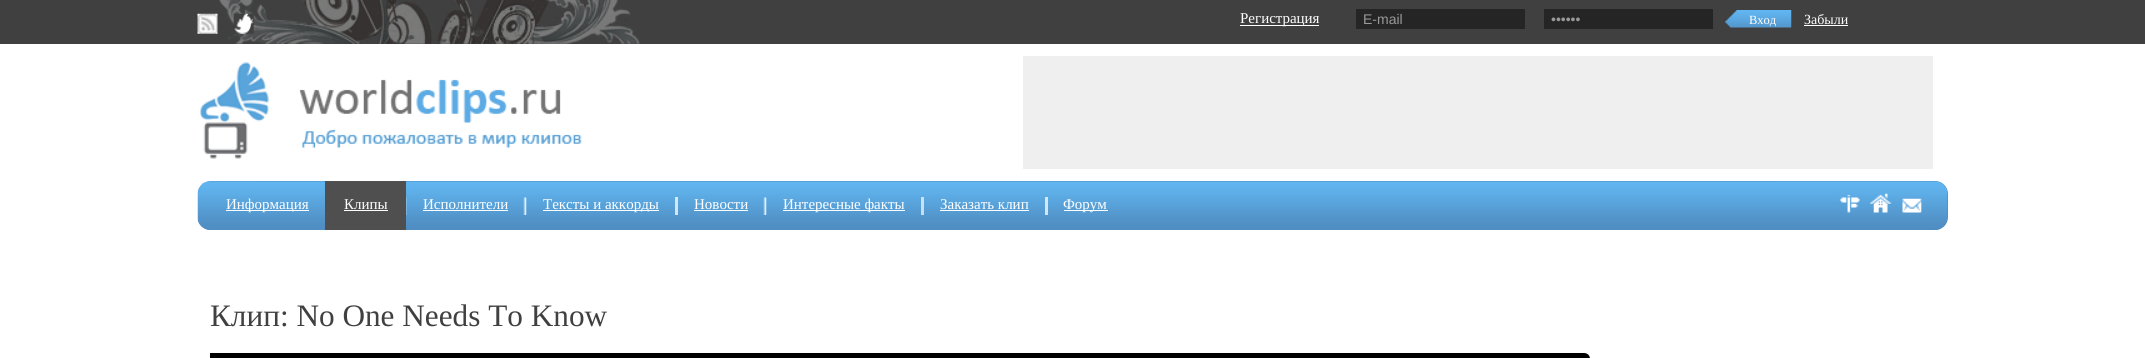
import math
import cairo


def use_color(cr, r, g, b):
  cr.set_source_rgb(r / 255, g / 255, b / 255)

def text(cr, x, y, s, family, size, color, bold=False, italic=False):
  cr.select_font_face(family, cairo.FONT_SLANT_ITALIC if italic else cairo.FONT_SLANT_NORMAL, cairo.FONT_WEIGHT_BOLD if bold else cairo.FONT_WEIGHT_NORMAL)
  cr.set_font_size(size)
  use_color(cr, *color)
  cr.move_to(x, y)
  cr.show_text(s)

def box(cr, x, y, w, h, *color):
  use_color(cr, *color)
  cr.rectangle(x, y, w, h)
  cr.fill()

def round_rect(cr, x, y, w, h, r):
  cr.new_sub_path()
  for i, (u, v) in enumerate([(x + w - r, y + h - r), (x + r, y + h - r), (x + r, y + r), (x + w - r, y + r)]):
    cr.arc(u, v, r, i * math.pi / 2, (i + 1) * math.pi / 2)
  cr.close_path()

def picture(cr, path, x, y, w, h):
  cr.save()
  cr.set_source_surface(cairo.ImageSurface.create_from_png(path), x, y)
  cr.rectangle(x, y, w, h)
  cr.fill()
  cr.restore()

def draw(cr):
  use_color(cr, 255, 255, 255)
  cr.paint()
  box(cr, 0, 0, 2145, 44, 64, 64, 64)
  picture(cr, "img_01.png", 219, 0, 421, 44)
  picture(cr, "img_02.png", 197, 13, 21, 21)
  picture(cr, "img_03.png", 233, 13, 21, 21)
  box(cr, 1240, 25, 79, 1, 255, 255, 255)
  box(cr, 1356, 9, 169, 20, 37, 37, 37)
  box(cr, 1544, 9, 169, 20, 37, 37, 37)
  picture(cr, "img_04.png", 1725, 10, 67, 18)
  box(cr, 1804, 25, 44, 1, 255, 255, 255)
  picture(cr, "img_05.png", 199, 62, 383, 97)
  box(cr, 1023, 56, 910, 113, 239, 239, 239)
  use_color(cr, 79, 141, 194)
  round_rect(cr, 198, 181, 1750, 49, 13)
  cr.fill()
  picture(cr, "img_06.png", 197, 181, 1751, 49)
  box(cr, 226, 210, 83, 1, 255, 255, 255)
  box(cr, 325, 181, 81, 49, 79, 79, 79)
  box(cr, 344, 210, 44, 1, 255, 255, 255)
  picture(cr, "img_07.png", 406, 197, 1, 18)
  box(cr, 423, 210, 85, 1, 255, 255, 255)
  picture(cr, "img_08.png", 523, 197, 4, 18)
  box(cr, 543, 210, 116, 1, 255, 255, 255)
  cr.set_source_rgba(1, 1, 1, 0.74)
  cr.rectangle(675, 197, 3, 18)
  cr.fill()
  box(cr, 694, 210, 54, 1, 255, 255, 255)
  picture(cr, "img_08.png", 763, 197, 4, 18)
  box(cr, 783, 210, 122, 1, 255, 255, 255)
  cr.set_source_rgba(1, 1, 1, 0.67)
  cr.rectangle(921, 197, 3, 18)
  cr.fill()
  box(cr, 940, 210, 89, 1, 255, 255, 255)
  cr.set_source_rgba(1, 1, 1, 0.74)
  cr.rectangle(1045, 197, 3, 18)
  cr.fill()
  box(cr, 1064, 210, 44, 1, 255, 255, 255)
  picture(cr, "img_09.png", 1839, 194, 21, 19)
  picture(cr, "img_10.png", 1870, 193, 22, 20)
  picture(cr, "img_11.png", 1902, 198, 20, 15)
  use_color(cr, 0, 0, 0)
  cr.new_path()
  cr.move_to(210, 353)
  cr.line_to(1584, 353)
  cr.curve_to(1587.5, 353, 1590, 355.5, 1590, 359)
  cr.line_to(1590, 358)
  cr.curve_to(1590, 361.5, 1587.5, 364, 1584, 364)
  cr.line_to(210, 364)
  cr.close_path()
  cr.fill()
  text(cr, 1240, 23, "Регистрация", "Liberation Serif", 15, (255, 255, 255))
  text(cr, 1363, 24, "E-mail", "Liberation Sans", 14, (153, 153, 153))
  text(cr, 1551, 24, "••••••", "Liberation Sans", 14, (153, 153, 153))
  text(cr, 1749, 24, "Вход", "Liberation Serif", 12.5, (255, 255, 255))
  text(cr, 1804, 24, "Забыли", "Liberation Serif", 14, (255, 255, 255))
  text(cr, 226, 209, "Информация", "Liberation Serif", 15, (255, 255, 255))
  text(cr, 344, 209, "Клипы", "Liberation Serif", 15, (255, 255, 255))
  text(cr, 423, 209, "Исполнители", "Liberation Serif", 15, (255, 255, 255))
  text(cr, 543, 209, "Тексты и аккорды", "Liberation Serif", 15, (255, 255, 255))
  text(cr, 694, 209, "Новости", "Liberation Serif", 15, (255, 255, 255))
  text(cr, 783, 209, "Интересные факты", "Liberation Serif", 15, (255, 255, 255))
  text(cr, 940, 209, "Заказать клип", "Liberation Serif", 15, (255, 255, 255))
  text(cr, 1063, 209, "Форум", "Liberation Serif", 15, (255, 255, 255))
  text(cr, 210, 326, "Клип: No One Needs To Know", "Liberation Serif", 31.25, (64, 64, 64))


surface = cairo.ImageSurface(cairo.FORMAT_RGB24, 2145, 358)
cr = cairo.Context(surface)
options = cairo.FontOptions()
options.set_hint_metrics(cairo.HINT_METRICS_OFF)
options.set_hint_style(cairo.HINT_STYLE_NONE)
cr.set_font_options(options)
cr.set_miter_limit(4)
draw(cr)
surface.write_to_png("out.png")
